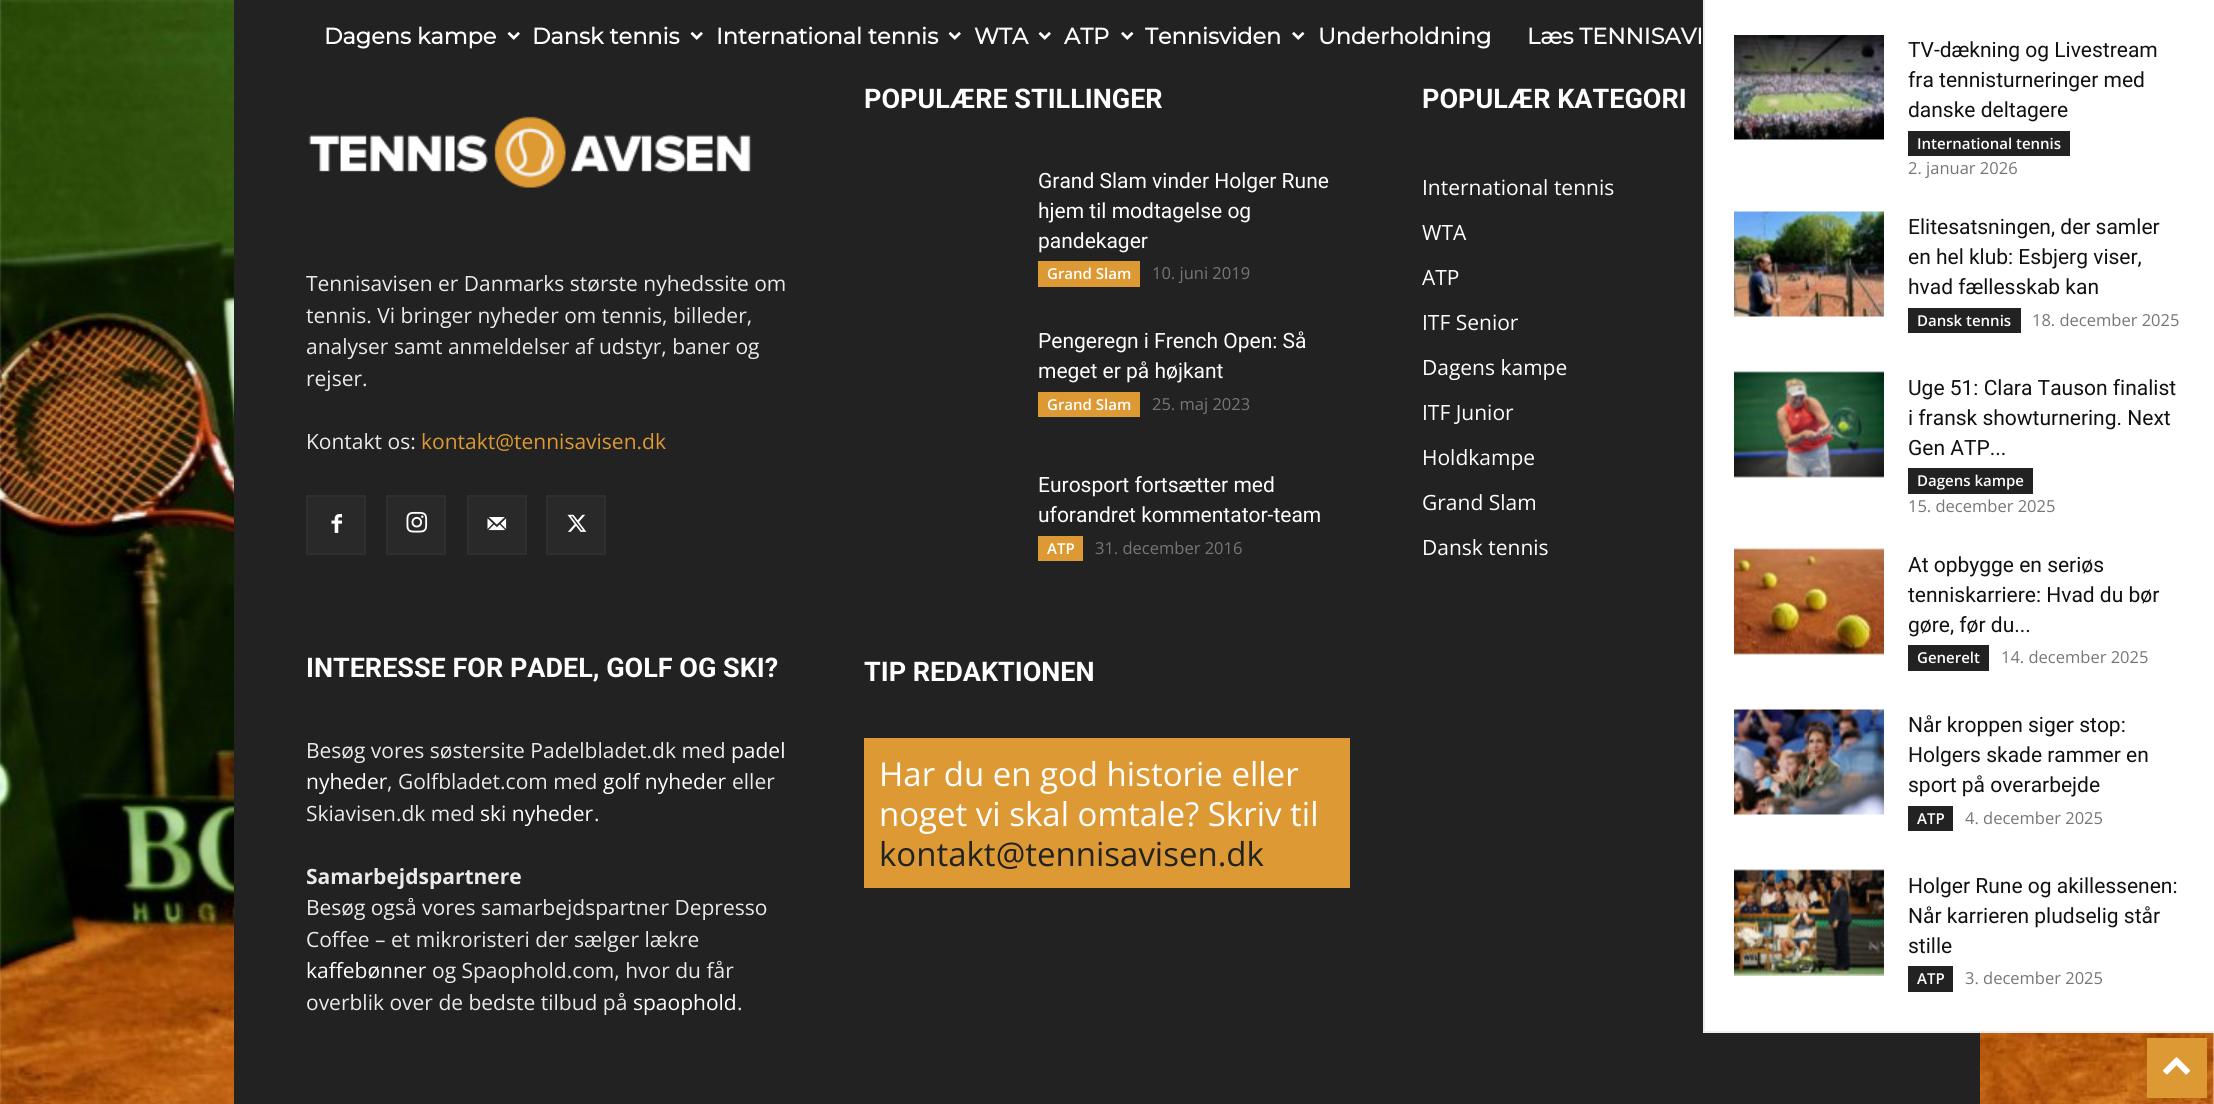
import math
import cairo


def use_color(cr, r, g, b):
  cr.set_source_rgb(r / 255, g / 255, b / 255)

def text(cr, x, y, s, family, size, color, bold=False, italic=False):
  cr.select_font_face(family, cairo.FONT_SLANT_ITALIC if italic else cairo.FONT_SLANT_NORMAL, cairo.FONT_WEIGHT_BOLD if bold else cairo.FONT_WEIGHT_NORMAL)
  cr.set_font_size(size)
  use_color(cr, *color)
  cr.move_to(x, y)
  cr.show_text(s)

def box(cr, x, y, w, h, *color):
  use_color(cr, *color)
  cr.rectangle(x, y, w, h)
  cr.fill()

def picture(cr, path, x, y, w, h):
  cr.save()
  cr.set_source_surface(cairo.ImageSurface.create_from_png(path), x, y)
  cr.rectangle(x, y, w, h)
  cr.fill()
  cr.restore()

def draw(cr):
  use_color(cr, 255, 255, 255)
  cr.paint()
  picture(cr, "img_01.png", 0, 0, 2214, 1104)
  box(cr, 234, 0, 1746, 1104, 34, 34, 34)
  picture(cr, "img_02.png", 507, 32, 13, 8)
  picture(cr, "img_02.png", 690, 32, 13, 8)
  picture(cr, "img_02.png", 948, 32, 13, 8)
  picture(cr, "img_02.png", 1038, 32, 13, 8)
  picture(cr, "img_03.png", 1121, 32, 13, 8)
  picture(cr, "img_03.png", 1292, 32, 13, 8)
  picture(cr, "img_04.png", 308, 116, 443, 72)
  box(cr, 308, 497, 56, 56, 41, 41, 41)
  picture(cr, "img_05.png", 331, 514, 11, 19)
  cr.rectangle(307, 496, 58, 58)
  use_color(cr, 47, 47, 47)
  cr.stroke()
  box(cr, 388, 497, 56, 56, 41, 41, 41)
  picture(cr, "img_06.png", 406, 511, 22, 22)
  cr.rectangle(387, 496, 58, 58)
  use_color(cr, 47, 47, 47)
  cr.stroke()
  box(cr, 469, 497, 56, 56, 41, 41, 41)
  picture(cr, "img_07.png", 487, 517, 20, 14)
  cr.rectangle(468, 496, 58, 58)
  use_color(cr, 47, 47, 47)
  cr.stroke()
  box(cr, 548, 497, 56, 56, 41, 41, 41)
  picture(cr, "img_08.png", 567, 514, 20, 18)
  cr.rectangle(547, 496, 58, 58)
  use_color(cr, 47, 47, 47)
  cr.stroke()
  box(cr, 1038, 261, 102, 26, 221, 153, 51)
  box(cr, 1038, 392, 102, 25, 221, 153, 51)
  box(cr, 1038, 536, 45, 25, 221, 153, 51)
  box(cr, 864, 738, 486, 150, 221, 153, 51)
  box(cr, 1705, 0, 509, 1031, 255, 255, 255)
  box(cr, 1703, 1031, 511, 2, 237, 237, 237)
  box(cr, 1703, 0, 2, 1032, 237, 237, 237)
  picture(cr, "img_09.png", 1734, 35, 150, 105)
  box(cr, 1908, 131, 162, 25, 34, 34, 34)
  picture(cr, "img_10.png", 1734, 211, 150, 106)
  box(cr, 1908, 308, 113, 25, 34, 34, 34)
  picture(cr, "img_11.png", 1734, 371, 150, 107)
  box(cr, 1908, 468, 125, 26, 34, 34, 34)
  picture(cr, "img_12.png", 1734, 548, 150, 107)
  box(cr, 1908, 645, 81, 26, 34, 34, 34)
  picture(cr, "img_13.png", 1734, 709, 150, 106)
  box(cr, 1908, 806, 45, 25, 34, 34, 34)
  picture(cr, "img_14.png", 1734, 869, 150, 107)
  box(cr, 1908, 966, 45, 26, 34, 34, 34)
  box(cr, 2147, 1038, 60, 60, 221, 153, 51)
  picture(cr, "img_15.png", 2163, 1057, 27, 18)
  text(cr, 324, 44, "Dagens kampe", "Montserrat", 22.5, (255, 255, 255), bold=True)
  text(cr, 532, 44, "Dansk tennis", "Montserrat", 22.5, (255, 255, 255), bold=True)
  text(cr, 716, 44, "International tennis", "Montserrat", 22.5, (255, 255, 255), bold=True)
  text(cr, 974, 44, "WTA", "Montserrat", 22.5, (255, 255, 255), bold=True)
  text(cr, 1064, 44, "ATP", "Montserrat", 22.5, (255, 255, 255), bold=True)
  text(cr, 1145, 44, "Tennisviden", "Montserrat", 22.5, (255, 255, 255), bold=True)
  text(cr, 1318, 44, "Underholdning", "Montserrat", 22.5, (255, 255, 255), bold=True)
  text(cr, 1527, 44, "Læs TENNISAVI", "Montserrat", 22.5, (255, 255, 255), bold=True)
  text(cr, 306, 291, "Tennisavisen er Danmarks største nyhedssite om", "Open Sans", 21, (234, 234, 234))
  text(cr, 306, 323, "tennis. Vi bringer nyheder om tennis, billeder,", "Open Sans", 21, (234, 234, 234))
  text(cr, 306, 354, "analyser samt anmeldelser af udstyr, baner og", "Open Sans", 21, (234, 234, 234))
  text(cr, 306, 386, "rejser.", "Open Sans", 21, (234, 234, 234))
  text(cr, 306, 449, "Kontakt os:", "Open Sans", 21, (234, 234, 234))
  text(cr, 421, 449, "kontakt@tennisavisen.dk", "Open Sans", 21, (221, 153, 51))
  text(cr, 306, 677, "INTERESSE FOR PADEL, GOLF OG SKI?", "Roboto", 27, (255, 255, 255), bold=True)
  text(cr, 306, 758, "Besøg vores søstersite Padelbladet.dk med", "Open Sans", 21, (234, 234, 234))
  text(cr, 731, 758, "padel", "Open Sans", 21, (255, 255, 255))
  text(cr, 306, 789, "nyheder", "Open Sans", 21, (255, 255, 255))
  text(cr, 387, 789, ", Golfbladet.com med", "Open Sans", 21, (234, 234, 234))
  text(cr, 603, 789, "golf nyheder", "Open Sans", 21, (255, 255, 255))
  text(cr, 732, 789, "eller", "Open Sans", 21, (234, 234, 234))
  text(cr, 306, 821, "Skiavisen.dk med", "Open Sans", 21, (234, 234, 234))
  text(cr, 480, 821, "ski nyheder", "Open Sans", 21, (255, 255, 255))
  text(cr, 594, 821, ".", "Open Sans", 21, (234, 234, 234))
  text(cr, 306, 884, "Samarbejdspartnere", "Open Sans", 21, (234, 234, 234), bold=True)
  text(cr, 306, 915, "Besøg også vores samarbejdspartner Depresso", "Open Sans", 21, (234, 234, 234))
  text(cr, 306, 947, "Coffee – et mikroristeri der sælger lækre", "Open Sans", 21, (234, 234, 234))
  text(cr, 306, 978, "kaffebønner", "Open Sans", 21, (255, 255, 255))
  text(cr, 432, 978, "og Spaophold.com, hvor du får", "Open Sans", 21, (234, 234, 234))
  text(cr, 306, 1010, "overblik over de bedste tilbud på", "Open Sans", 21, (234, 234, 234))
  text(cr, 633, 1010, "spaophold", "Open Sans", 21, (255, 255, 255))
  text(cr, 737, 1010, ".", "Open Sans", 21, (234, 234, 234))
  text(cr, 864, 108, "POPULÆRE STILLINGER", "Roboto", 27, (255, 255, 255), bold=True)
  text(cr, 1038, 188, "Grand Slam vinder Holger Rune", "Roboto", 21, (255, 255, 255))
  text(cr, 1038, 218, "hjem til modtagelse og", "Roboto", 21, (255, 255, 255))
  text(cr, 1038, 248, "pandekager", "Roboto", 21, (255, 255, 255))
  text(cr, 1047, 279, "Grand Slam", "Open Sans SemiBold", 15, (255, 255, 255))
  text(cr, 1152, 279, "10. juni 2019", "Open Sans", 16.5, (118, 118, 118))
  text(cr, 1038, 348, "Pengeregn i French Open: Så", "Roboto", 21, (255, 255, 255))
  text(cr, 1038, 378, "meget er på højkant", "Roboto", 21, (255, 255, 255))
  text(cr, 1047, 410, "Grand Slam", "Open Sans SemiBold", 15, (255, 255, 255))
  text(cr, 1152, 410, "25. maj 2023", "Open Sans", 16.5, (118, 118, 118))
  text(cr, 1038, 492, "Eurosport fortsætter med", "Roboto", 21, (255, 255, 255))
  text(cr, 1038, 522, "uforandret kommentator-team", "Roboto", 21, (255, 255, 255))
  text(cr, 1047, 554, "ATP", "Open Sans SemiBold", 15, (255, 255, 255))
  text(cr, 1095, 554, "31. december 2016", "Open Sans", 16.5, (118, 118, 118))
  text(cr, 864, 681, "TIP REDAKTIONEN", "Roboto", 27, (255, 255, 255), bold=True)
  text(cr, 879, 786, "Har du en god historie eller", "Open Sans", 33, (255, 255, 255))
  text(cr, 879, 826, "noget vi skal omtale? Skriv til", "Open Sans", 33, (255, 255, 255))
  text(cr, 879, 866, "kontakt@tennisavisen.dk", "Open Sans", 33, (34, 34, 34))
  text(cr, 1422, 108, "POPULÆR KATEGORI", "Roboto", 27, (255, 255, 255), bold=True)
  text(cr, 1422, 195, "International tennis", "Open Sans", 21, (255, 255, 255))
  text(cr, 1422, 240, "WTA", "Open Sans", 21, (255, 255, 255))
  text(cr, 1422, 285, "ATP", "Open Sans", 21, (255, 255, 255))
  text(cr, 1422, 330, "ITF Senior", "Open Sans", 21, (255, 255, 255))
  text(cr, 1422, 375, "Dagens kampe", "Open Sans", 21, (255, 255, 255))
  text(cr, 1422, 420, "ITF Junior", "Open Sans", 21, (255, 255, 255))
  text(cr, 1422, 465, "Holdkampe", "Open Sans", 21, (255, 255, 255))
  text(cr, 1422, 510, "Grand Slam", "Open Sans", 21, (255, 255, 255))
  text(cr, 1422, 555, "Dansk tennis", "Open Sans", 21, (255, 255, 255))
  text(cr, 1908, 57, "TV-dækning og Livestream", "Roboto", 21, (17, 17, 17))
  text(cr, 1908, 87, "fra tennisturneringer med", "Roboto", 21, (17, 17, 17))
  text(cr, 1908, 117, "danske deltagere", "Roboto", 21, (17, 17, 17))
  text(cr, 1917, 149, "International tennis", "Open Sans SemiBold", 15, (255, 255, 255))
  text(cr, 1908, 174, "2. januar 2026", "Open Sans", 16.5, (118, 118, 118))
  text(cr, 1908, 234, "Elitesatsningen, der samler", "Roboto", 21, (17, 17, 17))
  text(cr, 1908, 264, "en hel klub: Esbjerg viser,", "Roboto", 21, (17, 17, 17))
  text(cr, 1908, 294, "hvad fællesskab kan", "Roboto", 21, (17, 17, 17))
  text(cr, 1917, 326, "Dansk tennis", "Open Sans SemiBold", 15, (255, 255, 255))
  text(cr, 2032, 326, "18. december 2025", "Open Sans", 16.5, (118, 118, 118))
  text(cr, 1908, 395, "Uge 51: Clara Tauson finalist", "Roboto", 21, (17, 17, 17))
  text(cr, 1908, 425, "i fransk showturnering. Next", "Roboto", 21, (17, 17, 17))
  text(cr, 1908, 455, "Gen ATP...", "Roboto", 21, (17, 17, 17))
  text(cr, 1917, 486, "Dagens kampe", "Open Sans SemiBold", 15, (255, 255, 255))
  text(cr, 1908, 512, "15. december 2025", "Open Sans", 16.5, (118, 118, 118))
  text(cr, 1908, 572, "At opbygge en seriøs", "Roboto", 21, (17, 17, 17))
  text(cr, 1908, 602, "tenniskarriere: Hvad du bør", "Roboto", 21, (17, 17, 17))
  text(cr, 1908, 632, "gøre, før du...", "Roboto", 21, (17, 17, 17))
  text(cr, 1917, 663, "Generelt", "Open Sans SemiBold", 15, (255, 255, 255))
  text(cr, 2001, 663, "14. december 2025", "Open Sans", 16.5, (118, 118, 118))
  text(cr, 1908, 732, "Når kroppen siger stop:", "Roboto", 21, (17, 17, 17))
  text(cr, 1908, 762, "Holgers skade rammer en", "Roboto", 21, (17, 17, 17))
  text(cr, 1908, 792, "sport på overarbejde", "Roboto", 21, (17, 17, 17))
  text(cr, 1917, 824, "ATP", "Open Sans SemiBold", 15, (255, 255, 255))
  text(cr, 1965, 824, "4. december 2025", "Open Sans", 16.5, (118, 118, 118))
  text(cr, 1908, 893, "Holger Rune og akillessenen:", "Roboto", 21, (17, 17, 17))
  text(cr, 1908, 923, "Når karrieren pludselig står", "Roboto", 21, (17, 17, 17))
  text(cr, 1908, 953, "stille", "Roboto", 21, (17, 17, 17))
  text(cr, 1917, 984, "ATP", "Open Sans SemiBold", 15, (255, 255, 255))
  text(cr, 1965, 984, "3. december 2025", "Open Sans", 16.5, (118, 118, 118))


surface = cairo.ImageSurface(cairo.FORMAT_RGB24, 2214, 1104)
cr = cairo.Context(surface)
options = cairo.FontOptions()
options.set_hint_metrics(cairo.HINT_METRICS_OFF)
options.set_hint_style(cairo.HINT_STYLE_NONE)
cr.set_font_options(options)
cr.set_miter_limit(4)
draw(cr)
surface.write_to_png("out.png")
